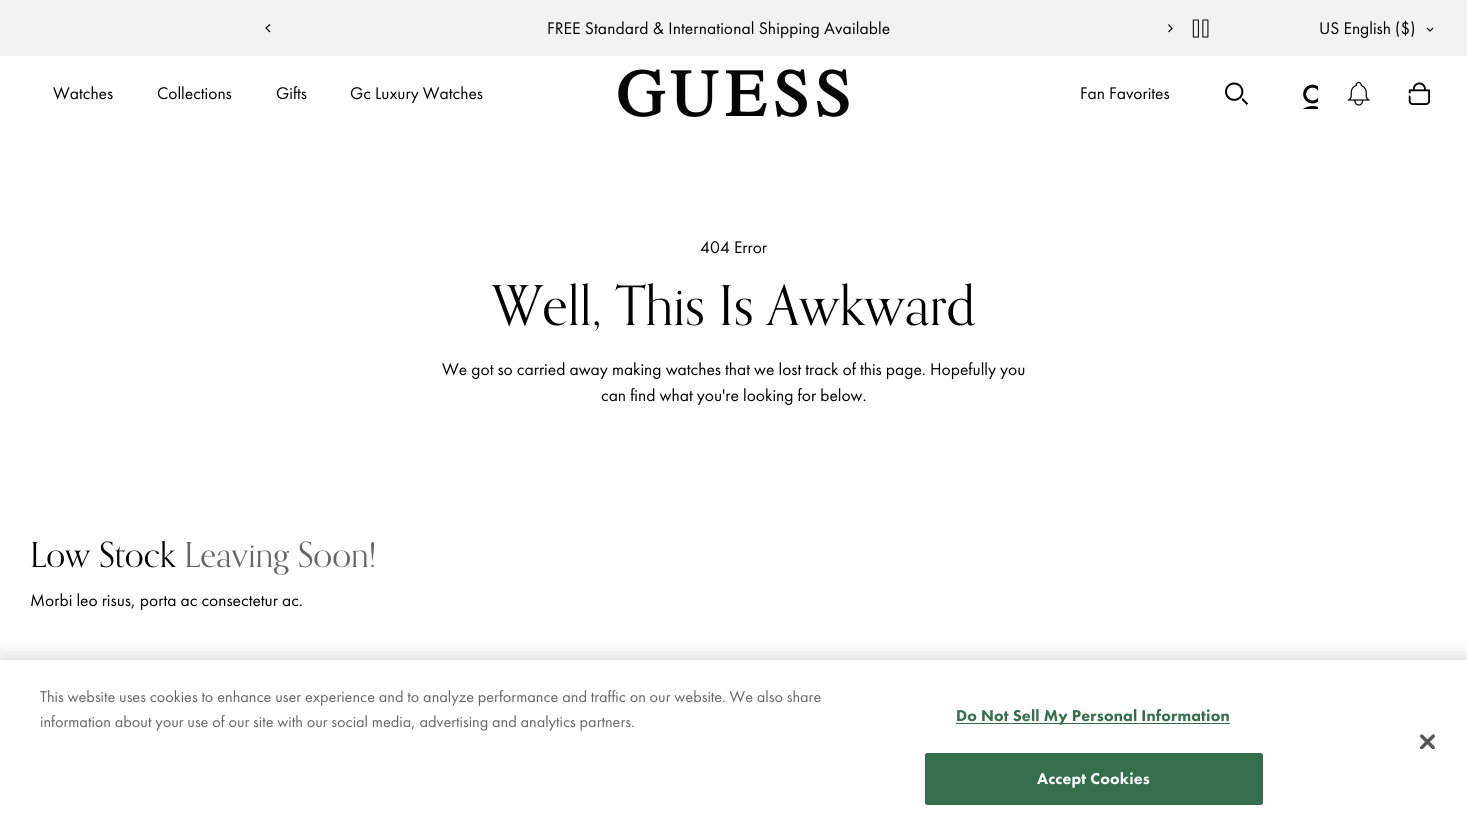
import math
import cairo


def use_color(cr, r, g, b):
  cr.set_source_rgb(r / 255, g / 255, b / 255)

def text(cr, x, y, s, family, size, color, bold=False, italic=False):
  cr.select_font_face(family, cairo.FONT_SLANT_ITALIC if italic else cairo.FONT_SLANT_NORMAL, cairo.FONT_WEIGHT_BOLD if bold else cairo.FONT_WEIGHT_NORMAL)
  cr.set_font_size(size)
  use_color(cr, *color)
  cr.move_to(x, y)
  cr.show_text(s)

def spaced_text(cr, x, y, s, letter, word):
  cr.move_to(x, y)
  for ch in s:
    cr.show_text(ch)
    cr.rel_move_to(letter + word * (ch == ' '), 0)

def box(cr, x, y, w, h, *color):
  use_color(cr, *color)
  cr.rectangle(x, y, w, h)
  cr.fill()

def round_rect(cr, x, y, w, h, r):
  cr.new_sub_path()
  for i, (u, v) in enumerate([(x + w - r, y + h - r), (x + r, y + h - r), (x + r, y + r), (x + w - r, y + r)]):
    cr.arc(u, v, r, i * math.pi / 2, (i + 1) * math.pi / 2)
  cr.close_path()

def shadow(cr, x, y, w, h, r, blur, alpha):
  cr.push_group_with_content(cairo.CONTENT_ALPHA)
  cr.set_operator(cairo.OPERATOR_SOURCE)
  for i in range(15, -16, -2):
    e = blur * i / 6
    if min(w, h) + 2 * e > 0:
      cr.set_source_rgba(0, 0, 0, alpha * math.erfc((i - 1) / 8.5) / 2)
      round_rect(cr, x - e, y - e, w + 2 * e, h + 2 * e, max(0, min(r + e + blur * .6, min(w, h) / 2 + e)))
      cr.fill()
  cr.mask(cr.pop_group())

def picture(cr, path, x, y, w, h):
  cr.save()
  cr.set_source_surface(cairo.ImageSurface.create_from_png(path), x, y)
  cr.rectangle(x, y, w, h)
  cr.fill()
  cr.restore()

def draw(cr):
  use_color(cr, 255, 255, 255)
  cr.paint()
  box(cr, 0, 0, 1467, 56, 242, 242, 242)
  cr.new_path()
  cr.move_to(270, 24.5)
  cr.line_to(266, 28)
  cr.line_to(270, 32)
  use_color(cr, 0, 0, 0)
  cr.set_line_width(1.2)
  cr.stroke()
  cr.new_path()
  cr.move_to(1168.5, 32)
  cr.line_to(1172, 28.5)
  cr.line_to(1168.5, 24.5)
  cr.stroke()
  picture(cr, "img_01.png", 1192, 19, 17, 19)
  cr.new_path()
  cr.move_to(1427, 28)
  cr.line_to(1430, 31)
  cr.line_to(1433, 28)
  cr.stroke()
  picture(cr, "img_02.png", 618, 69, 231, 48)
  picture(cr, "img_03.png", 1225, 82, 24, 23)
  picture(cr, "img_04.png", 1303, 84, 15, 25)
  picture(cr, "img_05.png", 1347, 81, 23, 25)
  picture(cr, "img_06.png", 1408, 82, 22, 23)
  use_color(cr, 0, 0, 0)
  shadow(cr, 0, 660, 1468, 170, 0, 11, 0.2)
  box(cr, 0, 660, 1467, 170, 255, 255, 255)
  box(cr, 956, 723, 274, 1, 52, 110, 74)
  round_rect(cr, 925.5, 753.5, 337, 51, 2)
  cr.fill_preserve()
  cr.set_line_width(1)
  cr.stroke()
  picture(cr, "img_07.png", 1420, 734, 15, 15)
  cr.select_font_face("Futura PT")
  cr.set_font_size(17.5)
  use_color(cr, 0, 0, 0)
  spaced_text(cr, 547, 34, "FREE Standard & International Shipping Available", 0.1, 0)
  text(cr, 1319, 34, "US English ($)", "Futura PT", 17.5, (0, 0, 0))
  text(cr, 53, 99, "Watches", "Futura PT", 17.5, (0, 0, 0))
  text(cr, 157, 99, "Collections", "Futura PT", 17.5, (0, 0, 0))
  text(cr, 276, 99, "Gifts", "Futura PT", 17.5, (0, 0, 0))
  text(cr, 350, 99, "Gc Luxury Watches", "Futura PT", 17.5, (0, 0, 0))
  text(cr, 1080, 99, "Fan Favorites", "Futura PT", 17.5, (0, 0, 0))
  text(cr, 700, 253, "404 Error", "Futura PT", 17.5, (0, 0, 0))
  text(cr, 492, 325, "Well, This Is Awkward", "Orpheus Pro", 55, (0, 0, 0))
  text(cr, 442, 375, "We got so carried away making watches that we lost track of this page. Hopefully you", "Futura PT", 17.5, (0, 0, 0))
  text(cr, 601, 401, "can find what you're looking for below.", "Futura PT", 17.5, (0, 0, 0))
  text(cr, 30, 567, "Low Stock", "Orpheus Pro", 34.5, (0, 0, 0))
  text(cr, 184, 567, "Leaving Soon!", "Orpheus Pro", 34.5, (102, 102, 102))
  text(cr, 30, 606, "Morbi leo risus, porta ac consectetur ac.", "Futura PT", 17.5, (0, 0, 0))
  text(cr, 40, 702, "This website uses cookies to enhance user experience and to analyze performance and traffic on our website. We also share", "Futura PT", 16.25, (102, 102, 102))
  text(cr, 40, 727, "information about your use of our site with our social media, advertising and analytics partners.", "Futura PT", 16.25, (102, 102, 102))
  cr.select_font_face("Futura PT Black")
  use_color(cr, 52, 110, 74)
  spaced_text(cr, 956, 721, "Do Not Sell My Personal Information", 0.15, 0)
  use_color(cr, 255, 255, 255)
  spaced_text(cr, 1037, 784, "Accept Cookies", 0.15, 0)


surface = cairo.ImageSurface(cairo.FORMAT_RGB24, 1467, 830)
cr = cairo.Context(surface)
options = cairo.FontOptions()
options.set_hint_metrics(cairo.HINT_METRICS_OFF)
options.set_hint_style(cairo.HINT_STYLE_NONE)
cr.set_font_options(options)
cr.set_miter_limit(4)
draw(cr)
surface.write_to_png("out.png")
